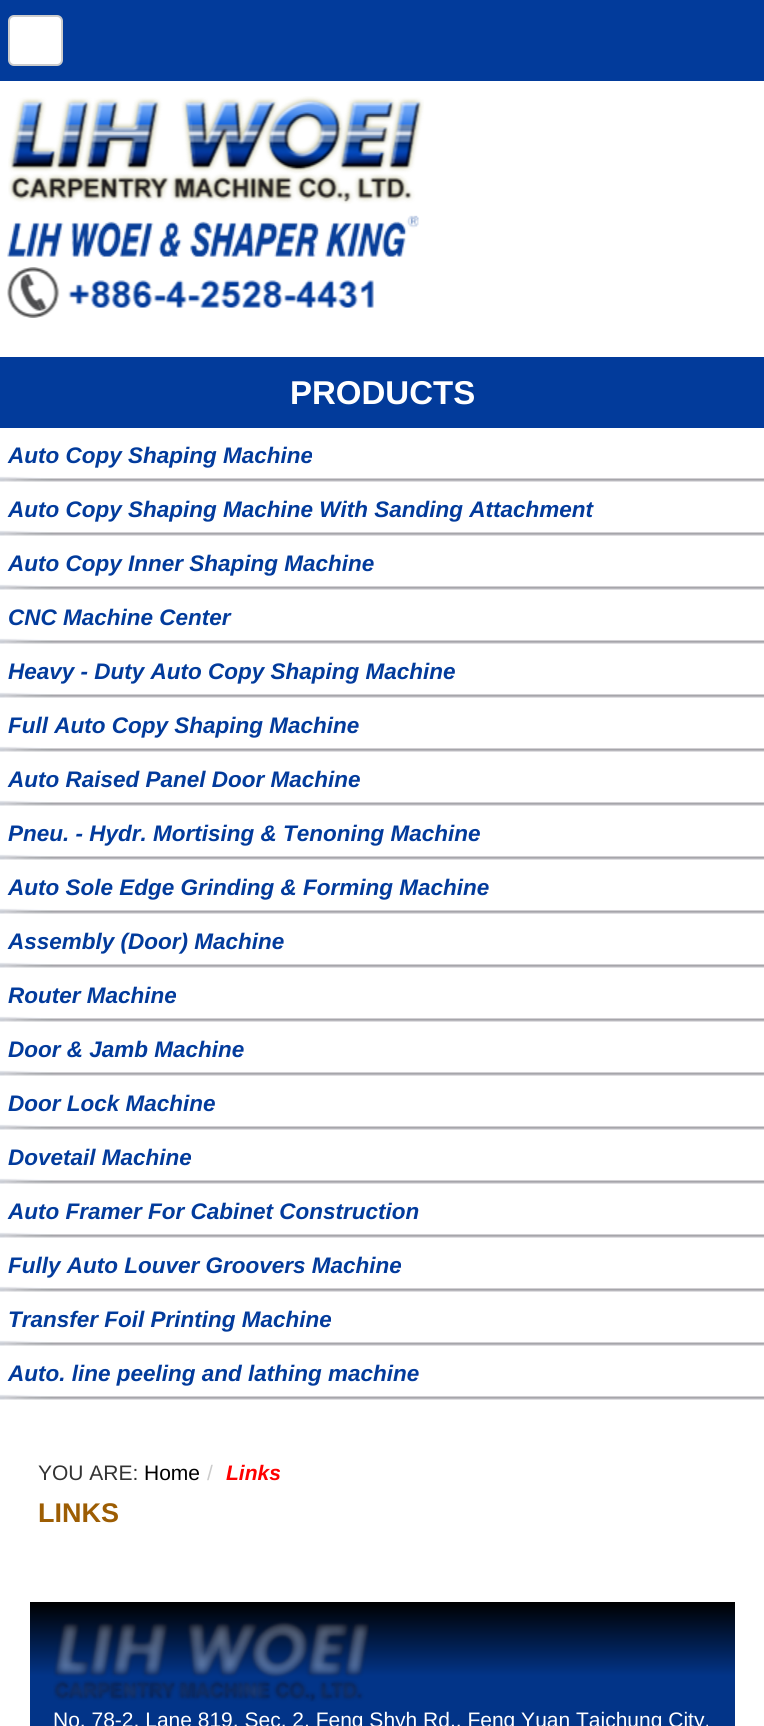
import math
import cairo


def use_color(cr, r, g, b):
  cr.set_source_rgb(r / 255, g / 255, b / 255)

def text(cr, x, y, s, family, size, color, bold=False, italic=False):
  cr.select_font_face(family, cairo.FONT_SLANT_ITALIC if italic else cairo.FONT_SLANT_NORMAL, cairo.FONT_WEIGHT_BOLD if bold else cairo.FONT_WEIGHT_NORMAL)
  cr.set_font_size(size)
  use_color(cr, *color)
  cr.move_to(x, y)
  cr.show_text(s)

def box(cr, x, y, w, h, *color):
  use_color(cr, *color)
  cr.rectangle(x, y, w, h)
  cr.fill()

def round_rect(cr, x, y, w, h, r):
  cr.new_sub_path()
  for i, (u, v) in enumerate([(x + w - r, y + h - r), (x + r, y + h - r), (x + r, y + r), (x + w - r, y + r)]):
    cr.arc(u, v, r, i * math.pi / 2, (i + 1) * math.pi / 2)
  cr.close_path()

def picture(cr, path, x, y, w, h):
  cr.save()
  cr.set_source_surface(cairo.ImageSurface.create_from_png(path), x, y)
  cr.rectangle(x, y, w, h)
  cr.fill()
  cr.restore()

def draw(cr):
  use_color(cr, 255, 255, 255)
  cr.paint()
  box(cr, 0, 0, 764, 81, 2, 59, 155)
  use_color(cr, 255, 255, 255)
  round_rect(cr, 9, 16, 53, 49, 5)
  cr.fill_preserve()
  use_color(cr, 204, 204, 204)
  cr.stroke()
  picture(cr, "img_01.png", 8, 96, 416, 108)
  picture(cr, "img_02.png", 7, 215, 412, 42)
  picture(cr, "img_03.png", 7, 267, 367, 51)
  box(cr, 0, 357, 764, 71, 2, 59, 155)
  picture(cr, "img_04.png", 0, 476, 764, 6)
  picture(cr, "img_04.png", 0, 530, 764, 6)
  picture(cr, "img_04.png", 0, 584, 764, 6)
  picture(cr, "img_04.png", 0, 638, 764, 6)
  picture(cr, "img_04.png", 0, 692, 764, 6)
  picture(cr, "img_04.png", 0, 746, 764, 6)
  picture(cr, "img_04.png", 0, 800, 764, 6)
  picture(cr, "img_04.png", 0, 854, 764, 6)
  picture(cr, "img_04.png", 0, 908, 764, 6)
  picture(cr, "img_04.png", 0, 962, 764, 6)
  picture(cr, "img_04.png", 0, 1016, 764, 6)
  picture(cr, "img_04.png", 0, 1070, 764, 6)
  picture(cr, "img_04.png", 0, 1124, 764, 6)
  picture(cr, "img_04.png", 0, 1178, 764, 6)
  picture(cr, "img_04.png", 0, 1232, 764, 6)
  picture(cr, "img_04.png", 0, 1286, 764, 6)
  picture(cr, "img_04.png", 0, 1340, 764, 6)
  picture(cr, "img_04.png", 0, 1394, 764, 6)
  gradient = cairo.LinearGradient(383, 1602, 383, 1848)
  gradient.add_color_stop_rgba(0, 0, 0, 0, 1)
  gradient.add_color_stop_rgba(0.3, 0.008, 0.204, 0.533, 1)
  gradient.add_color_stop_rgba(1, 0.008, 0.204, 0.533, 1)
  gradient.add_color_stop_rgba(1, 0.008, 0.231, 0.608, 1)
  cr.set_source(gradient)
  cr.rectangle(30, 1602, 705, 124)
  cr.fill()
  picture(cr, "img_05.png", 53, 1621, 316, 81)
  text(cr, 290, 404, "PRODUCTS", "Liberation Sans", 33, (255, 255, 255), bold=True)
  text(cr, 8, 463, "Auto Copy Shaping Machine", "Liberation Sans", 22.5, (2, 59, 156), bold=True, italic=True)
  text(cr, 8, 517, "Auto Copy Shaping Machine With Sanding Attachment", "Liberation Sans", 22.5, (2, 59, 156), bold=True, italic=True)
  text(cr, 8, 571, "Auto Copy Inner Shaping Machine", "Liberation Sans", 22.5, (2, 59, 156), bold=True, italic=True)
  text(cr, 8, 625, "CNC Machine Center", "Liberation Sans", 22.5, (2, 59, 156), bold=True, italic=True)
  text(cr, 8, 679, "Heavy - Duty Auto Copy Shaping Machine", "Liberation Sans", 22.5, (2, 59, 156), bold=True, italic=True)
  text(cr, 8, 733, "Full Auto Copy Shaping Machine", "Liberation Sans", 22.5, (2, 59, 156), bold=True, italic=True)
  text(cr, 8, 787, "Auto Raised Panel Door Machine", "Liberation Sans", 22.5, (2, 59, 156), bold=True, italic=True)
  text(cr, 8, 841, "Pneu. - Hydr. Mortising & Tenoning Machine", "Liberation Sans", 22.5, (2, 59, 156), bold=True, italic=True)
  text(cr, 8, 895, "Auto Sole Edge Grinding & Forming Machine", "Liberation Sans", 22.5, (2, 59, 156), bold=True, italic=True)
  text(cr, 8, 949, "Assembly (Door) Machine", "Liberation Sans", 22.5, (2, 59, 156), bold=True, italic=True)
  text(cr, 8, 1003, "Router Machine", "Liberation Sans", 22.5, (2, 59, 156), bold=True, italic=True)
  text(cr, 8, 1057, "Door & Jamb Machine", "Liberation Sans", 22.5, (2, 59, 156), bold=True, italic=True)
  text(cr, 8, 1111, "Door Lock Machine", "Liberation Sans", 22.5, (2, 59, 156), bold=True, italic=True)
  text(cr, 8, 1165, "Dovetail Machine", "Liberation Sans", 22.5, (2, 59, 156), bold=True, italic=True)
  text(cr, 8, 1219, "Auto Framer For Cabinet Construction", "Liberation Sans", 22.5, (2, 59, 156), bold=True, italic=True)
  text(cr, 8, 1273, "Fully Auto Louver Groovers Machine", "Liberation Sans", 22.5, (2, 59, 156), bold=True, italic=True)
  text(cr, 8, 1327, "Transfer Foil Printing Machine", "Liberation Sans", 22.5, (2, 59, 156), bold=True, italic=True)
  text(cr, 8, 1381, "Auto. line peeling and lathing machine", "Liberation Sans", 22.5, (2, 59, 156), bold=True, italic=True)
  text(cr, 38, 1480, "YOU ARE:", "Liberation Sans", 21, (51, 51, 51))
  text(cr, 144, 1480, "Home", "Liberation Sans", 21, (0, 0, 0))
  text(cr, 207, 1480, "/", "Liberation Sans", 21, (204, 204, 204))
  text(cr, 226, 1480, "Links", "Liberation Sans", 21, (255, 0, 0), bold=True, italic=True)
  text(cr, 38, 1522, "LINKS", "Liberation Sans", 27, (157, 93, 3), bold=True)
  text(cr, 53, 1727, "No. 78-2, Lane 819, Sec. 2, Feng Shyh Rd., Feng Yuan Taichung City,", "Liberation Sans", 21, (255, 255, 255))


surface = cairo.ImageSurface(cairo.FORMAT_RGB24, 764, 1726)
cr = cairo.Context(surface)
options = cairo.FontOptions()
options.set_hint_metrics(cairo.HINT_METRICS_OFF)
options.set_hint_style(cairo.HINT_STYLE_NONE)
cr.set_font_options(options)
cr.set_miter_limit(4)
draw(cr)
surface.write_to_png("out.png")
